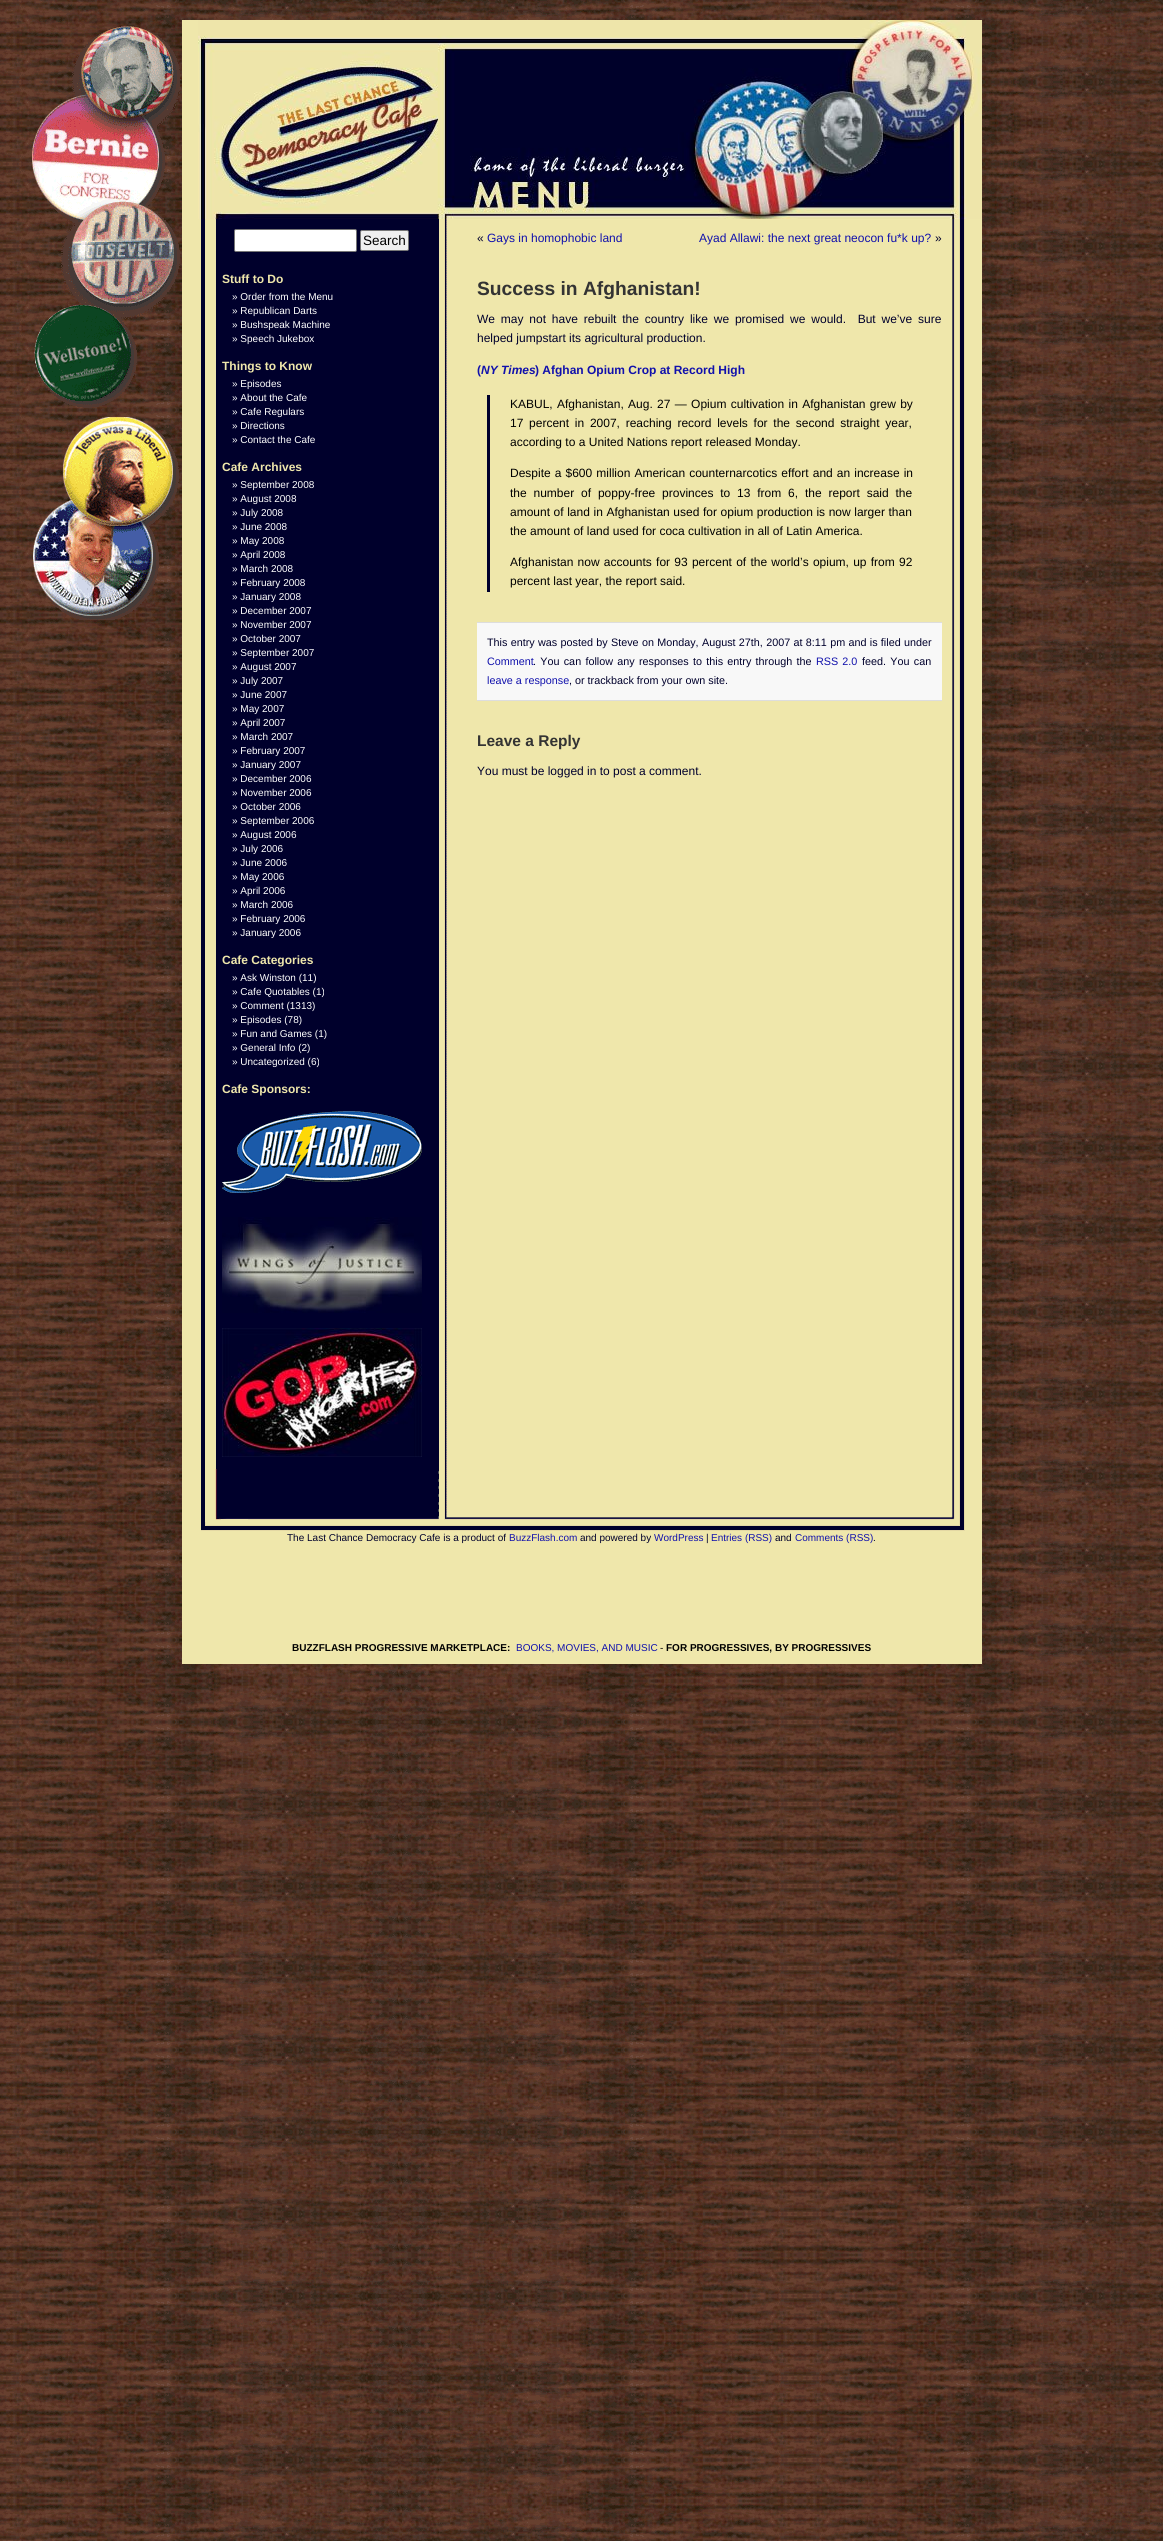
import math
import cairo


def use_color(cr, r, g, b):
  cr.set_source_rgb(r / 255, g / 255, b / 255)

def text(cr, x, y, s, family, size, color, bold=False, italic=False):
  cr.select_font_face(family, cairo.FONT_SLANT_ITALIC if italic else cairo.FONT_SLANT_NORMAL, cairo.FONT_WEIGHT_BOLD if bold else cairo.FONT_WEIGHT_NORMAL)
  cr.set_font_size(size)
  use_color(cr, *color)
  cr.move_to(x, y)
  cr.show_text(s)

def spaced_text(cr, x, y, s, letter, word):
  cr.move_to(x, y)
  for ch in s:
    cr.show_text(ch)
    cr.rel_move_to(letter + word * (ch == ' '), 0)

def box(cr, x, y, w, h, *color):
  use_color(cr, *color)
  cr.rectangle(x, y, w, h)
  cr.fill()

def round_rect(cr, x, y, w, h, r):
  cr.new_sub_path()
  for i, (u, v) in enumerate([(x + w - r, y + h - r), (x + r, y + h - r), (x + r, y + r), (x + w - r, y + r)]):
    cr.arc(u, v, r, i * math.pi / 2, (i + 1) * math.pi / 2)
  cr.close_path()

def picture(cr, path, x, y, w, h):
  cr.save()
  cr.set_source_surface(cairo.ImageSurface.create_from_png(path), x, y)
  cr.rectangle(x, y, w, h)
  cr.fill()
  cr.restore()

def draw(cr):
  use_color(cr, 255, 255, 255)
  cr.paint()
  picture(cr, "img_01.png", 0, 0, 1163, 2541)
  picture(cr, "img_02.png", 182, 219, 800, 1330)
  picture(cr, "img_03.png", 32, 26, 149, 594)
  picture(cr, "img_04.png", 182, 20, 16, 199)
  picture(cr, "img_05.png", 198, 20, 784, 199)
  use_color(cr, 255, 255, 255)
  round_rect(cr, 234.5, 229.5, 122, 22, 1.5)
  cr.fill_preserve()
  use_color(cr, 118, 118, 118)
  cr.set_line_width(1)
  cr.stroke()
  use_color(cr, 239, 239, 239)
  round_rect(cr, 360.5, 230.5, 48, 20, 1.5)
  cr.fill_preserve()
  use_color(cr, 118, 118, 118)
  cr.stroke()
  picture(cr, "img_06.png", 222, 1111, 200, 82)
  picture(cr, "img_07.png", 222, 1217, 200, 96)
  picture(cr, "img_08.png", 222, 1328, 200, 129)
  box(cr, 487, 395, 3, 197, 0, 0, 45)
  box(cr, 477, 623, 465, 77, 248, 248, 248)
  box(cr, 477, 622, 465, 1, 221, 221, 221)
  box(cr, 477, 700, 465, 1, 221, 221, 221)
  picture(cr, "img_09.png", 201, 1469, 764, 80)
  box(cr, 182, 1549, 800, 115, 239, 231, 171)
  text(cr, 363, 245, "Search", "Liberation Sans", 13.5, (0, 0, 0))
  text(cr, 222, 283, "Stuff to Do", "Liberation Sans", 12, (239, 231, 171), bold=True)
  text(cr, 232, 300, "» Order from the Menu", "Liberation Sans", 10, (255, 255, 255))
  text(cr, 232, 314, "» Republican Darts", "Liberation Sans", 10, (255, 255, 255))
  text(cr, 232, 328, "» Bushspeak Machine", "Liberation Sans", 10, (255, 255, 255))
  text(cr, 232, 342, "» Speech Jukebox", "Liberation Sans", 10, (255, 255, 255))
  text(cr, 222, 370, "Things to Know", "Liberation Sans", 12, (239, 231, 171), bold=True)
  text(cr, 232, 387, "» Episodes", "Liberation Sans", 10, (255, 255, 255))
  text(cr, 232, 401, "» About the Cafe", "Liberation Sans", 10, (255, 255, 255))
  text(cr, 232, 415, "» Cafe Regulars", "Liberation Sans", 10, (255, 255, 255))
  text(cr, 232, 429, "» Directions", "Liberation Sans", 10, (255, 255, 255))
  text(cr, 232, 443, "» Contact the Cafe", "Liberation Sans", 10, (255, 255, 255))
  text(cr, 222, 471, "Cafe Archives", "Liberation Sans", 12, (239, 231, 171), bold=True)
  text(cr, 232, 488, "» September 2008", "Liberation Sans", 10, (255, 255, 255))
  text(cr, 232, 502, "» August 2008", "Liberation Sans", 10, (255, 255, 255))
  text(cr, 232, 516, "» July 2008", "Liberation Sans", 10, (255, 255, 255))
  text(cr, 232, 530, "» June 2008", "Liberation Sans", 10, (255, 255, 255))
  text(cr, 232, 544, "» May 2008", "Liberation Sans", 10, (255, 255, 255))
  text(cr, 232, 558, "» April 2008", "Liberation Sans", 10, (255, 255, 255))
  text(cr, 232, 572, "» March 2008", "Liberation Sans", 10, (255, 255, 255))
  text(cr, 232, 586, "» February 2008", "Liberation Sans", 10, (255, 255, 255))
  text(cr, 232, 600, "» January 2008", "Liberation Sans", 10, (255, 255, 255))
  text(cr, 232, 614, "» December 2007", "Liberation Sans", 10, (255, 255, 255))
  text(cr, 232, 628, "» November 2007", "Liberation Sans", 10, (255, 255, 255))
  text(cr, 232, 642, "» October 2007", "Liberation Sans", 10, (255, 255, 255))
  text(cr, 232, 656, "» September 2007", "Liberation Sans", 10, (255, 255, 255))
  text(cr, 232, 670, "» August 2007", "Liberation Sans", 10, (255, 255, 255))
  text(cr, 232, 684, "» July 2007", "Liberation Sans", 10, (255, 255, 255))
  text(cr, 232, 698, "» June 2007", "Liberation Sans", 10, (255, 255, 255))
  text(cr, 232, 712, "» May 2007", "Liberation Sans", 10, (255, 255, 255))
  text(cr, 232, 726, "» April 2007", "Liberation Sans", 10, (255, 255, 255))
  text(cr, 232, 740, "» March 2007", "Liberation Sans", 10, (255, 255, 255))
  text(cr, 232, 754, "» February 2007", "Liberation Sans", 10, (255, 255, 255))
  text(cr, 232, 768, "» January 2007", "Liberation Sans", 10, (255, 255, 255))
  text(cr, 232, 782, "» December 2006", "Liberation Sans", 10, (255, 255, 255))
  text(cr, 232, 796, "» November 2006", "Liberation Sans", 10, (255, 255, 255))
  text(cr, 232, 810, "» October 2006", "Liberation Sans", 10, (255, 255, 255))
  text(cr, 232, 824, "» September 2006", "Liberation Sans", 10, (255, 255, 255))
  text(cr, 232, 838, "» August 2006", "Liberation Sans", 10, (255, 255, 255))
  text(cr, 232, 852, "» July 2006", "Liberation Sans", 10, (255, 255, 255))
  text(cr, 232, 866, "» June 2006", "Liberation Sans", 10, (255, 255, 255))
  text(cr, 232, 880, "» May 2006", "Liberation Sans", 10, (255, 255, 255))
  text(cr, 232, 894, "» April 2006", "Liberation Sans", 10, (255, 255, 255))
  text(cr, 232, 908, "» March 2006", "Liberation Sans", 10, (255, 255, 255))
  text(cr, 232, 922, "» February 2006", "Liberation Sans", 10, (255, 255, 255))
  text(cr, 232, 936, "» January 2006", "Liberation Sans", 10, (255, 255, 255))
  text(cr, 222, 964, "Cafe Categories", "Liberation Sans", 12, (239, 231, 171), bold=True)
  text(cr, 232, 981, "» Ask Winston (11)", "Liberation Sans", 10, (255, 255, 255))
  text(cr, 232, 995, "» Cafe Quotables (1)", "Liberation Sans", 10, (255, 255, 255))
  text(cr, 232, 1009, "» Comment (1313)", "Liberation Sans", 10, (255, 255, 255))
  text(cr, 232, 1023, "» Episodes (78)", "Liberation Sans", 10, (255, 255, 255))
  text(cr, 232, 1037, "» Fun and Games (1)", "Liberation Sans", 10, (255, 255, 255))
  text(cr, 232, 1051, "» General Info (2)", "Liberation Sans", 10, (255, 255, 255))
  text(cr, 232, 1065, "» Uncategorized (6)", "Liberation Sans", 10, (255, 255, 255))
  text(cr, 222, 1093, "Cafe Sponsors:", "Liberation Sans", 12, (239, 231, 171), bold=True)
  text(cr, 477, 242, "«", "Liberation Sans", 12, (0, 0, 44))
  text(cr, 487, 242, "Gays in homophobic land", "Liberation Sans", 12, (17, 17, 172))
  text(cr, 699, 242, "Ayad Allawi: the next great neocon fu*k up?", "Liberation Sans", 12, (17, 17, 172))
  text(cr, 935, 242, "»", "Liberation Sans", 12, (0, 0, 44))
  text(cr, 477, 295, "Success in Afghanistan!", "Liberation Sans", 19.25, (51, 51, 51), bold=True)
  cr.select_font_face("Liberation Sans")
  cr.set_font_size(12)
  use_color(cr, 0, 0, 44)
  spaced_text(cr, 477, 323, "We may not have rebuilt the country like we promised we would.  But we’ve sure", 0, 2.5)
  text(cr, 477, 342, "helped jumpstart its agricultural production.", "Liberation Sans", 12, (0, 0, 44))
  text(cr, 477, 374, "(", "Liberation Sans", 12, (17, 17, 172), bold=True)
  text(cr, 481, 374, "NY Times", "Liberation Sans", 12, (17, 17, 172), bold=True, italic=True)
  text(cr, 535, 374, ") Afghan Opium Crop at Record High", "Liberation Sans", 12, (17, 17, 172), bold=True)
  cr.select_font_face("Liberation Sans")
  use_color(cr, 0, 0, 0)
  spaced_text(cr, 510, 408, "KABUL, Afghanistan, Aug. 27 — Opium cultivation in Afghanistan grew by", 0, 1)
  spaced_text(cr, 510, 427, "17 percent in 2007, reaching record levels for the second straight year,", 0, 2.4)
  text(cr, 510, 446, "according to a United Nations report released Monday.", "Liberation Sans", 12, (0, 0, 0))
  spaced_text(cr, 510, 477, "Despite a $600 million American counternarcotics effort and an increase in", 0, 0.75)
  spaced_text(cr, 510, 497, "the number of poppy-free provinces to 13 from 6, the report said the", 0, 3.5)
  spaced_text(cr, 510, 516, "amount of land in Afghanistan used for opium production is now larger than", 0, 0.25)
  text(cr, 510, 535, "the amount of land used for coca cultivation in all of Latin America.", "Liberation Sans", 12, (0, 0, 0))
  spaced_text(cr, 510, 566, "Afghanistan now accounts for 93 percent of the world’s opium, up from 92", 0, 0.9)
  text(cr, 510, 585, "percent last year, the report said.", "Liberation Sans", 12, (0, 0, 0))
  cr.set_font_size(10.8)
  use_color(cr, 0, 0, 44)
  spaced_text(cr, 487, 646, "This entry was posted by Steve on Monday, August 27th, 2007 at 8:11 pm and is filed under", 0, 0.3)
  text(cr, 487, 665, "Comment", "Liberation Sans", 10.8, (17, 17, 172))
  use_color(cr, 0, 0, 44)
  spaced_text(cr, 533, 665, ". You can follow any responses to this entry through the", 0, 1.25)
  use_color(cr, 17, 17, 172)
  spaced_text(cr, 816, 665, "RSS 2.0", 0, 1)
  use_color(cr, 0, 0, 44)
  spaced_text(cr, 862, 665, "feed. You can", 0, 1.25)
  text(cr, 487, 684, "leave a response", "Liberation Sans", 10.8, (17, 17, 172))
  text(cr, 569, 684, ", or trackback from your own site.", "Liberation Sans", 10.8, (0, 0, 44))
  text(cr, 477, 746, "Leave a Reply", "Liberation Sans", 15.5, (51, 51, 51), bold=True)
  text(cr, 477, 775, "You must be logged in to post a comment.", "Liberation Sans", 12, (0, 0, 44))
  text(cr, 287, 1541, "The Last Chance Democracy Cafe is a product of", "Liberation Sans", 10, (0, 0, 44))
  text(cr, 509, 1541, "BuzzFlash.com", "Liberation Sans", 10, (17, 17, 172))
  text(cr, 580, 1541, "and powered by", "Liberation Sans", 10, (0, 0, 44))
  text(cr, 654, 1541, "WordPress", "Liberation Sans", 10, (17, 17, 172))
  text(cr, 706, 1541, "|", "Liberation Sans", 10, (0, 0, 44))
  text(cr, 711, 1541, "Entries (RSS)", "Liberation Sans", 10, (17, 17, 172))
  text(cr, 775, 1541, "and", "Liberation Sans", 10, (0, 0, 44))
  text(cr, 795, 1541, "Comments (RSS)", "Liberation Sans", 10, (17, 17, 172))
  text(cr, 873, 1541, ".", "Liberation Sans", 10, (0, 0, 44))
  text(cr, 292, 1651, "BUZZFLASH PROGRESSIVE MARKETPLACE:", "Liberation Sans", 10, (0, 0, 0), bold=True)
  text(cr, 516, 1651, "BOOKS, MOVIES, AND MUSIC", "Liberation Sans", 10, (17, 17, 172))
  text(cr, 660, 1651, "-", "Liberation Sans", 10, (0, 0, 0))
  text(cr, 666, 1651, "FOR PROGRESSIVES, BY PROGRESSIVES", "Liberation Sans", 10, (0, 0, 0), bold=True)


surface = cairo.ImageSurface(cairo.FORMAT_RGB24, 1163, 2541)
cr = cairo.Context(surface)
options = cairo.FontOptions()
options.set_hint_metrics(cairo.HINT_METRICS_OFF)
options.set_hint_style(cairo.HINT_STYLE_NONE)
cr.set_font_options(options)
cr.set_miter_limit(4)
draw(cr)
surface.write_to_png("out.png")
